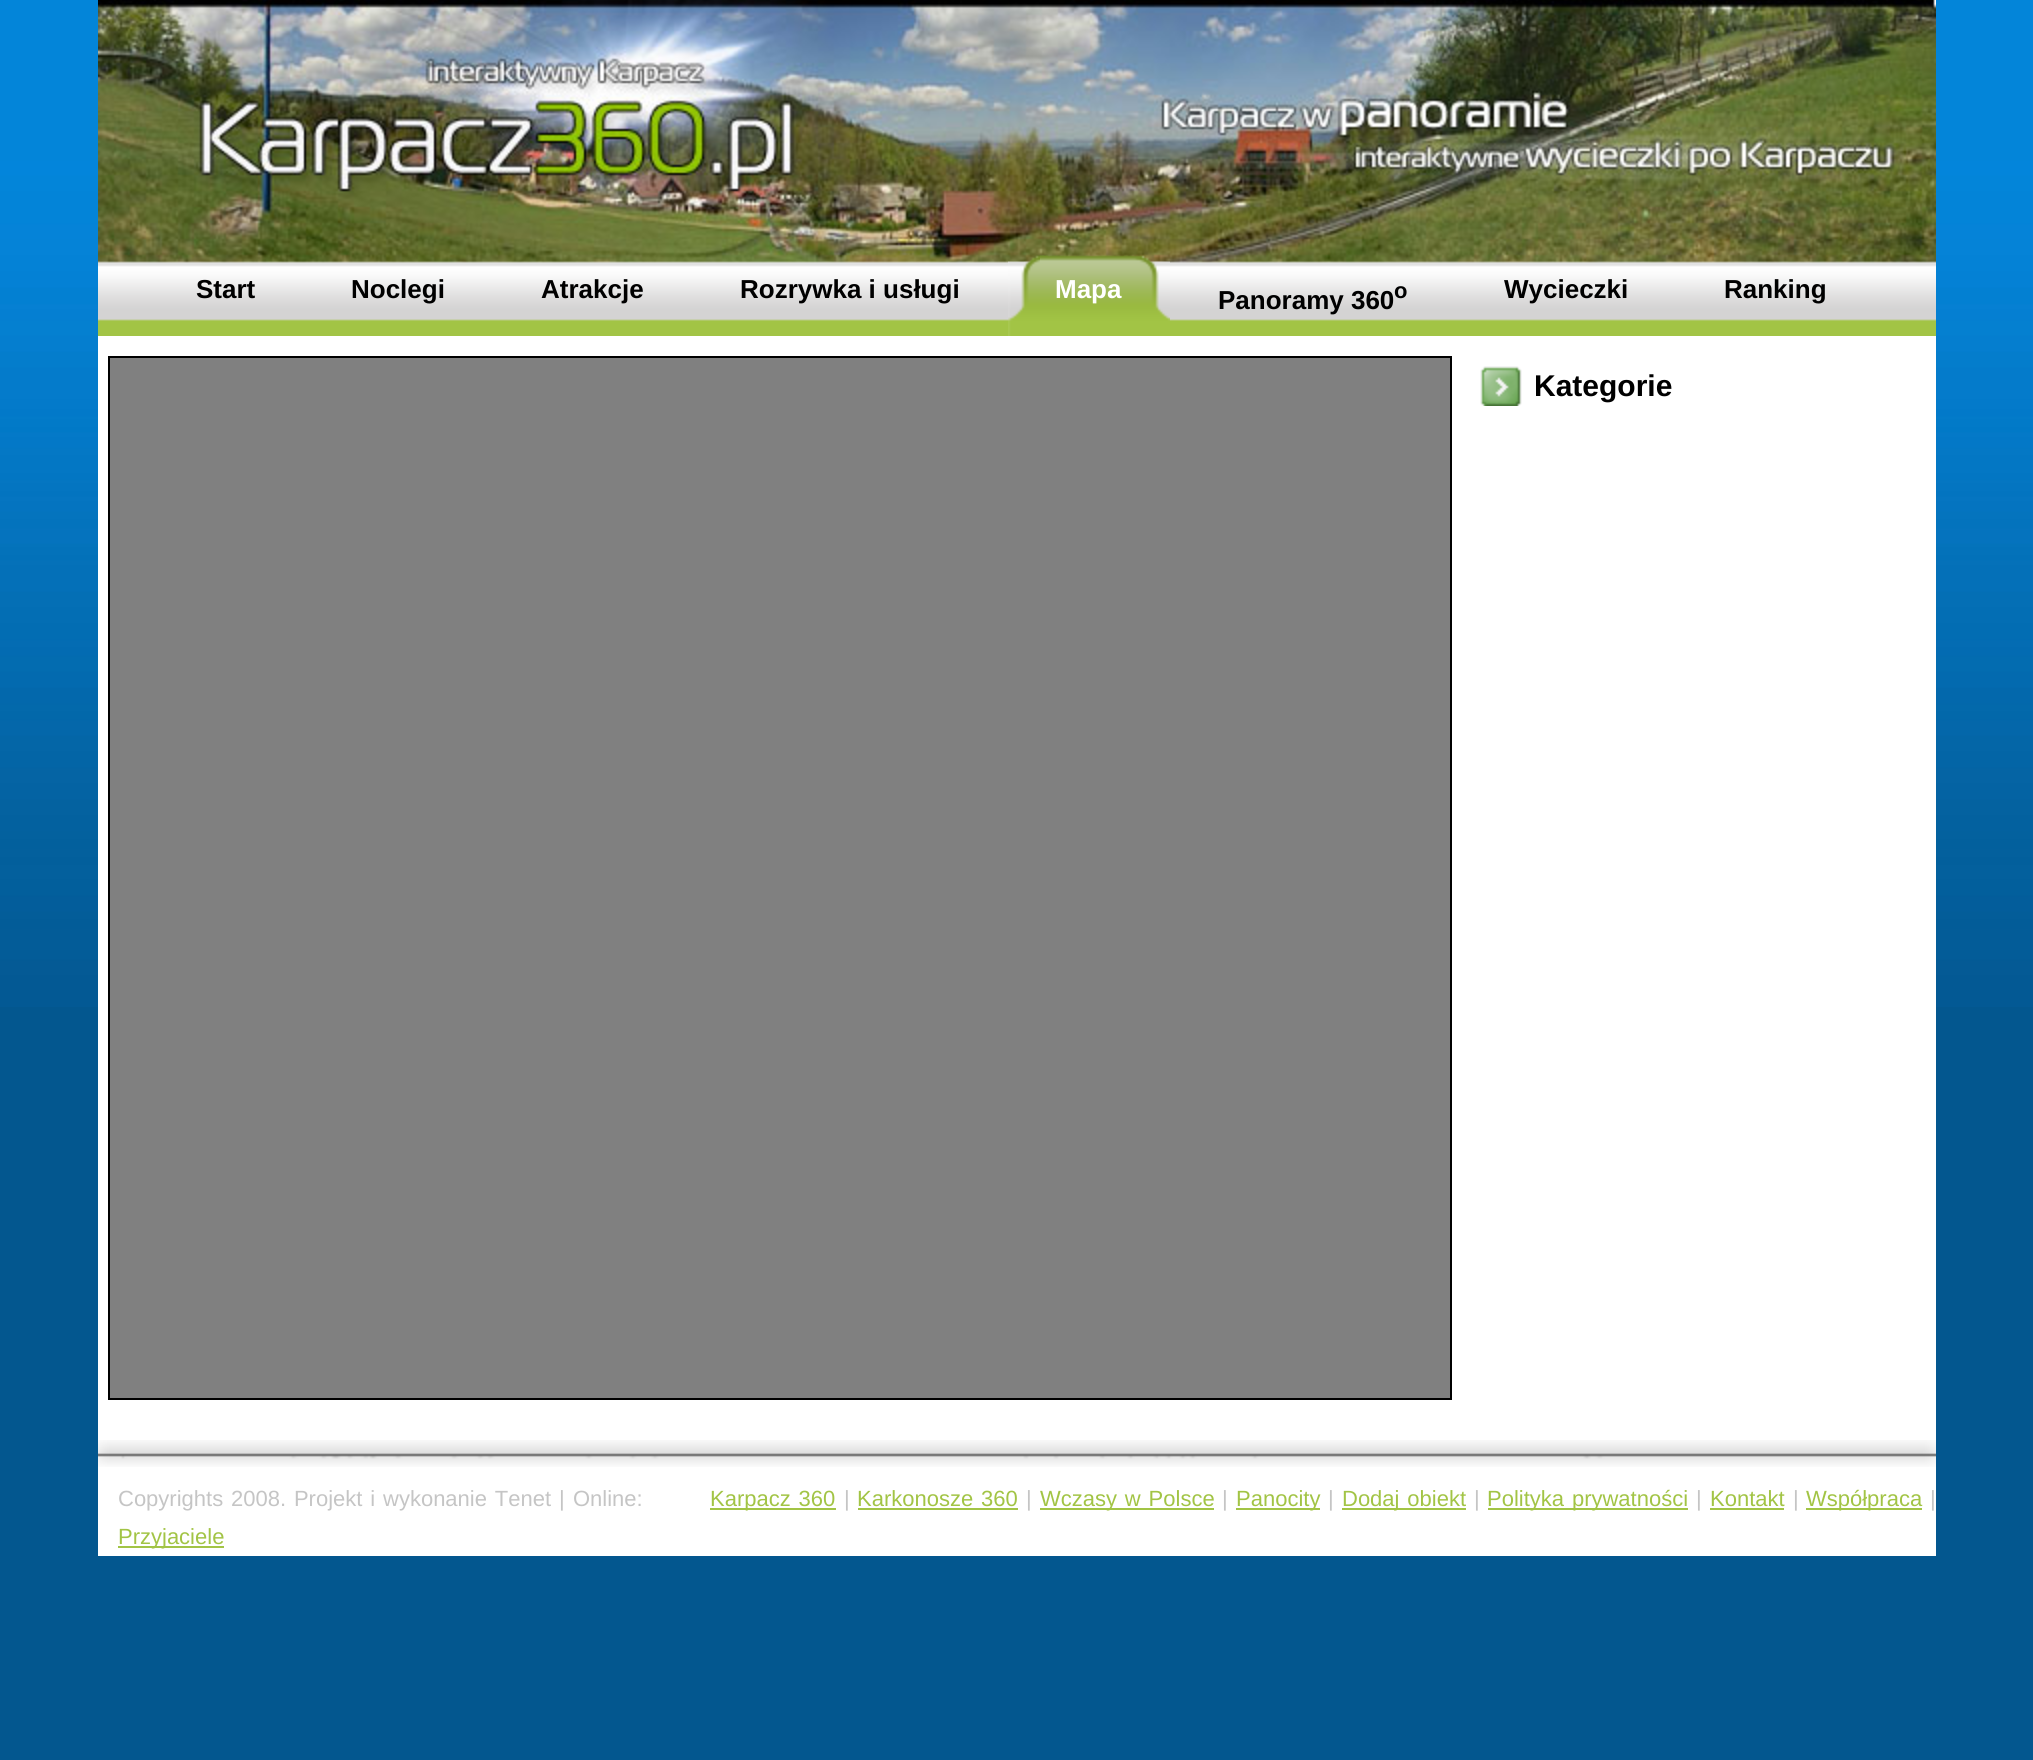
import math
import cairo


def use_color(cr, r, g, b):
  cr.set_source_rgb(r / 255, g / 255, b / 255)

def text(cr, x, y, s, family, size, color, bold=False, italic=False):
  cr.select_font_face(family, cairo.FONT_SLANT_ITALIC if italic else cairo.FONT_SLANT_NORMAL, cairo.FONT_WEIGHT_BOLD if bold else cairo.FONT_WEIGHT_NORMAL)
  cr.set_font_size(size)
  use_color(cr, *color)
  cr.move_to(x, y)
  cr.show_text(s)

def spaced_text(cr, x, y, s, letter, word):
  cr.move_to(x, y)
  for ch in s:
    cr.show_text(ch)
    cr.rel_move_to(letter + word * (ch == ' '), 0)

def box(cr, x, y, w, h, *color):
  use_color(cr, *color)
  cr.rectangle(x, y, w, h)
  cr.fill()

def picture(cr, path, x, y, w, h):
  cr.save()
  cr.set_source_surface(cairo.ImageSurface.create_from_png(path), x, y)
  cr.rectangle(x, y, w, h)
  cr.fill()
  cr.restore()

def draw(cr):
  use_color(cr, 3, 87, 143)
  cr.paint()
  picture(cr, "img_01.png", 0, 0, 2033, 1007)
  picture(cr, "img_02.png", 98, 0, 1838, 263)
  box(cr, 98, 336, 1838, 1220, 255, 255, 255)
  picture(cr, "img_03.png", 98, 261, 1838, 75)
  picture(cr, "img_04.png", 1008, 255, 40, 81)
  picture(cr, "img_05.png", 1040, 255, 130, 66)
  use_color(cr, 128, 128, 128)
  cr.rectangle(109, 357, 1342, 1042)
  cr.fill_preserve()
  use_color(cr, 0, 0, 0)
  cr.stroke()
  picture(cr, "img_06.png", 1480, 366, 42, 40)
  picture(cr, "img_07.png", 98, 1440, 1838, 27)
  box(cr, 710, 1508, 126, 2, 162, 196, 69)
  box(cr, 858, 1508, 160, 2, 162, 196, 69)
  box(cr, 1040, 1508, 174, 2, 162, 196, 69)
  box(cr, 1236, 1508, 84, 2, 162, 196, 69)
  box(cr, 1342, 1508, 124, 2, 162, 196, 69)
  box(cr, 1488, 1508, 200, 2, 162, 196, 69)
  box(cr, 1710, 1508, 74, 2, 162, 196, 69)
  box(cr, 1806, 1508, 116, 2, 162, 196, 69)
  box(cr, 118, 1546, 106, 2, 162, 196, 69)
  text(cr, 196, 298, "Start", "Liberation Sans", 26, (0, 0, 0), bold=True)
  text(cr, 351, 298, "Noclegi", "Liberation Sans", 26, (0, 0, 0), bold=True)
  text(cr, 541, 298, "Atrakcje", "Liberation Sans", 26, (0, 0, 0), bold=True)
  text(cr, 740, 298, "Rozrywka i usługi", "Liberation Sans", 26, (0, 0, 0), bold=True)
  text(cr, 1055, 298, "Mapa", "Liberation Sans", 26, (255, 255, 255), bold=True)
  text(cr, 1218, 309, "Panoramy 360", "Liberation Sans", 26, (0, 0, 0), bold=True)
  text(cr, 1394, 298, "o", "Liberation Sans", 22, (0, 0, 0), bold=True)
  text(cr, 1504, 298, "Wycieczki", "Liberation Sans", 26, (0, 0, 0), bold=True)
  text(cr, 1724, 298, "Ranking", "Liberation Sans", 26, (0, 0, 0), bold=True)
  text(cr, 1534, 396, "Kategorie", "Liberation Sans", 30, (0, 0, 0), bold=True)
  cr.select_font_face("Liberation Sans")
  cr.set_font_size(22)
  use_color(cr, 197, 197, 197)
  spaced_text(cr, 118, 1506, "Copyrights 2008. Projekt i wykonanie Tenet", 0, 1.75)
  text(cr, 559, 1506, "|", "Liberation Sans", 22, (197, 197, 197))
  text(cr, 573, 1506, "Online:", "Liberation Sans", 22, (197, 197, 197))
  use_color(cr, 162, 196, 69)
  spaced_text(cr, 710, 1506, "Karpacz 360", 0, 1.75)
  text(cr, 844, 1506, "|", "Liberation Sans", 22, (197, 197, 197))
  use_color(cr, 162, 196, 69)
  spaced_text(cr, 857, 1506, "Karkonosze 360", 0, 1.75)
  text(cr, 1026, 1506, "|", "Liberation Sans", 22, (197, 197, 197))
  use_color(cr, 162, 196, 69)
  spaced_text(cr, 1040, 1506, "Wczasy w Polsce", 0, 1.75)
  text(cr, 1222, 1506, "|", "Liberation Sans", 22, (197, 197, 197))
  text(cr, 1236, 1506, "Panocity", "Liberation Sans", 22, (162, 196, 69))
  text(cr, 1328, 1506, "|", "Liberation Sans", 22, (197, 197, 197))
  use_color(cr, 162, 196, 69)
  spaced_text(cr, 1342, 1506, "Dodaj obiekt", 0, 1.75)
  text(cr, 1474, 1506, "|", "Liberation Sans", 22, (197, 197, 197))
  use_color(cr, 162, 196, 69)
  spaced_text(cr, 1487, 1506, "Polityka prywatności", 0, 1.75)
  text(cr, 1696, 1506, "|", "Liberation Sans", 22, (197, 197, 197))
  text(cr, 1710, 1506, "Kontakt", "Liberation Sans", 22, (162, 196, 69))
  text(cr, 1793, 1506, "|", "Liberation Sans", 22, (197, 197, 197))
  text(cr, 1806, 1506, "Współpraca", "Liberation Sans", 22, (162, 196, 69))
  text(cr, 1930, 1506, "|", "Liberation Sans", 22, (197, 197, 197))
  text(cr, 118, 1544, "Przyjaciele", "Liberation Sans", 22, (162, 196, 69))


surface = cairo.ImageSurface(cairo.FORMAT_RGB24, 2033, 1760)
cr = cairo.Context(surface)
options = cairo.FontOptions()
options.set_hint_metrics(cairo.HINT_METRICS_OFF)
options.set_hint_style(cairo.HINT_STYLE_NONE)
cr.set_font_options(options)
cr.set_miter_limit(4)
draw(cr)
surface.write_to_png("out.png")
